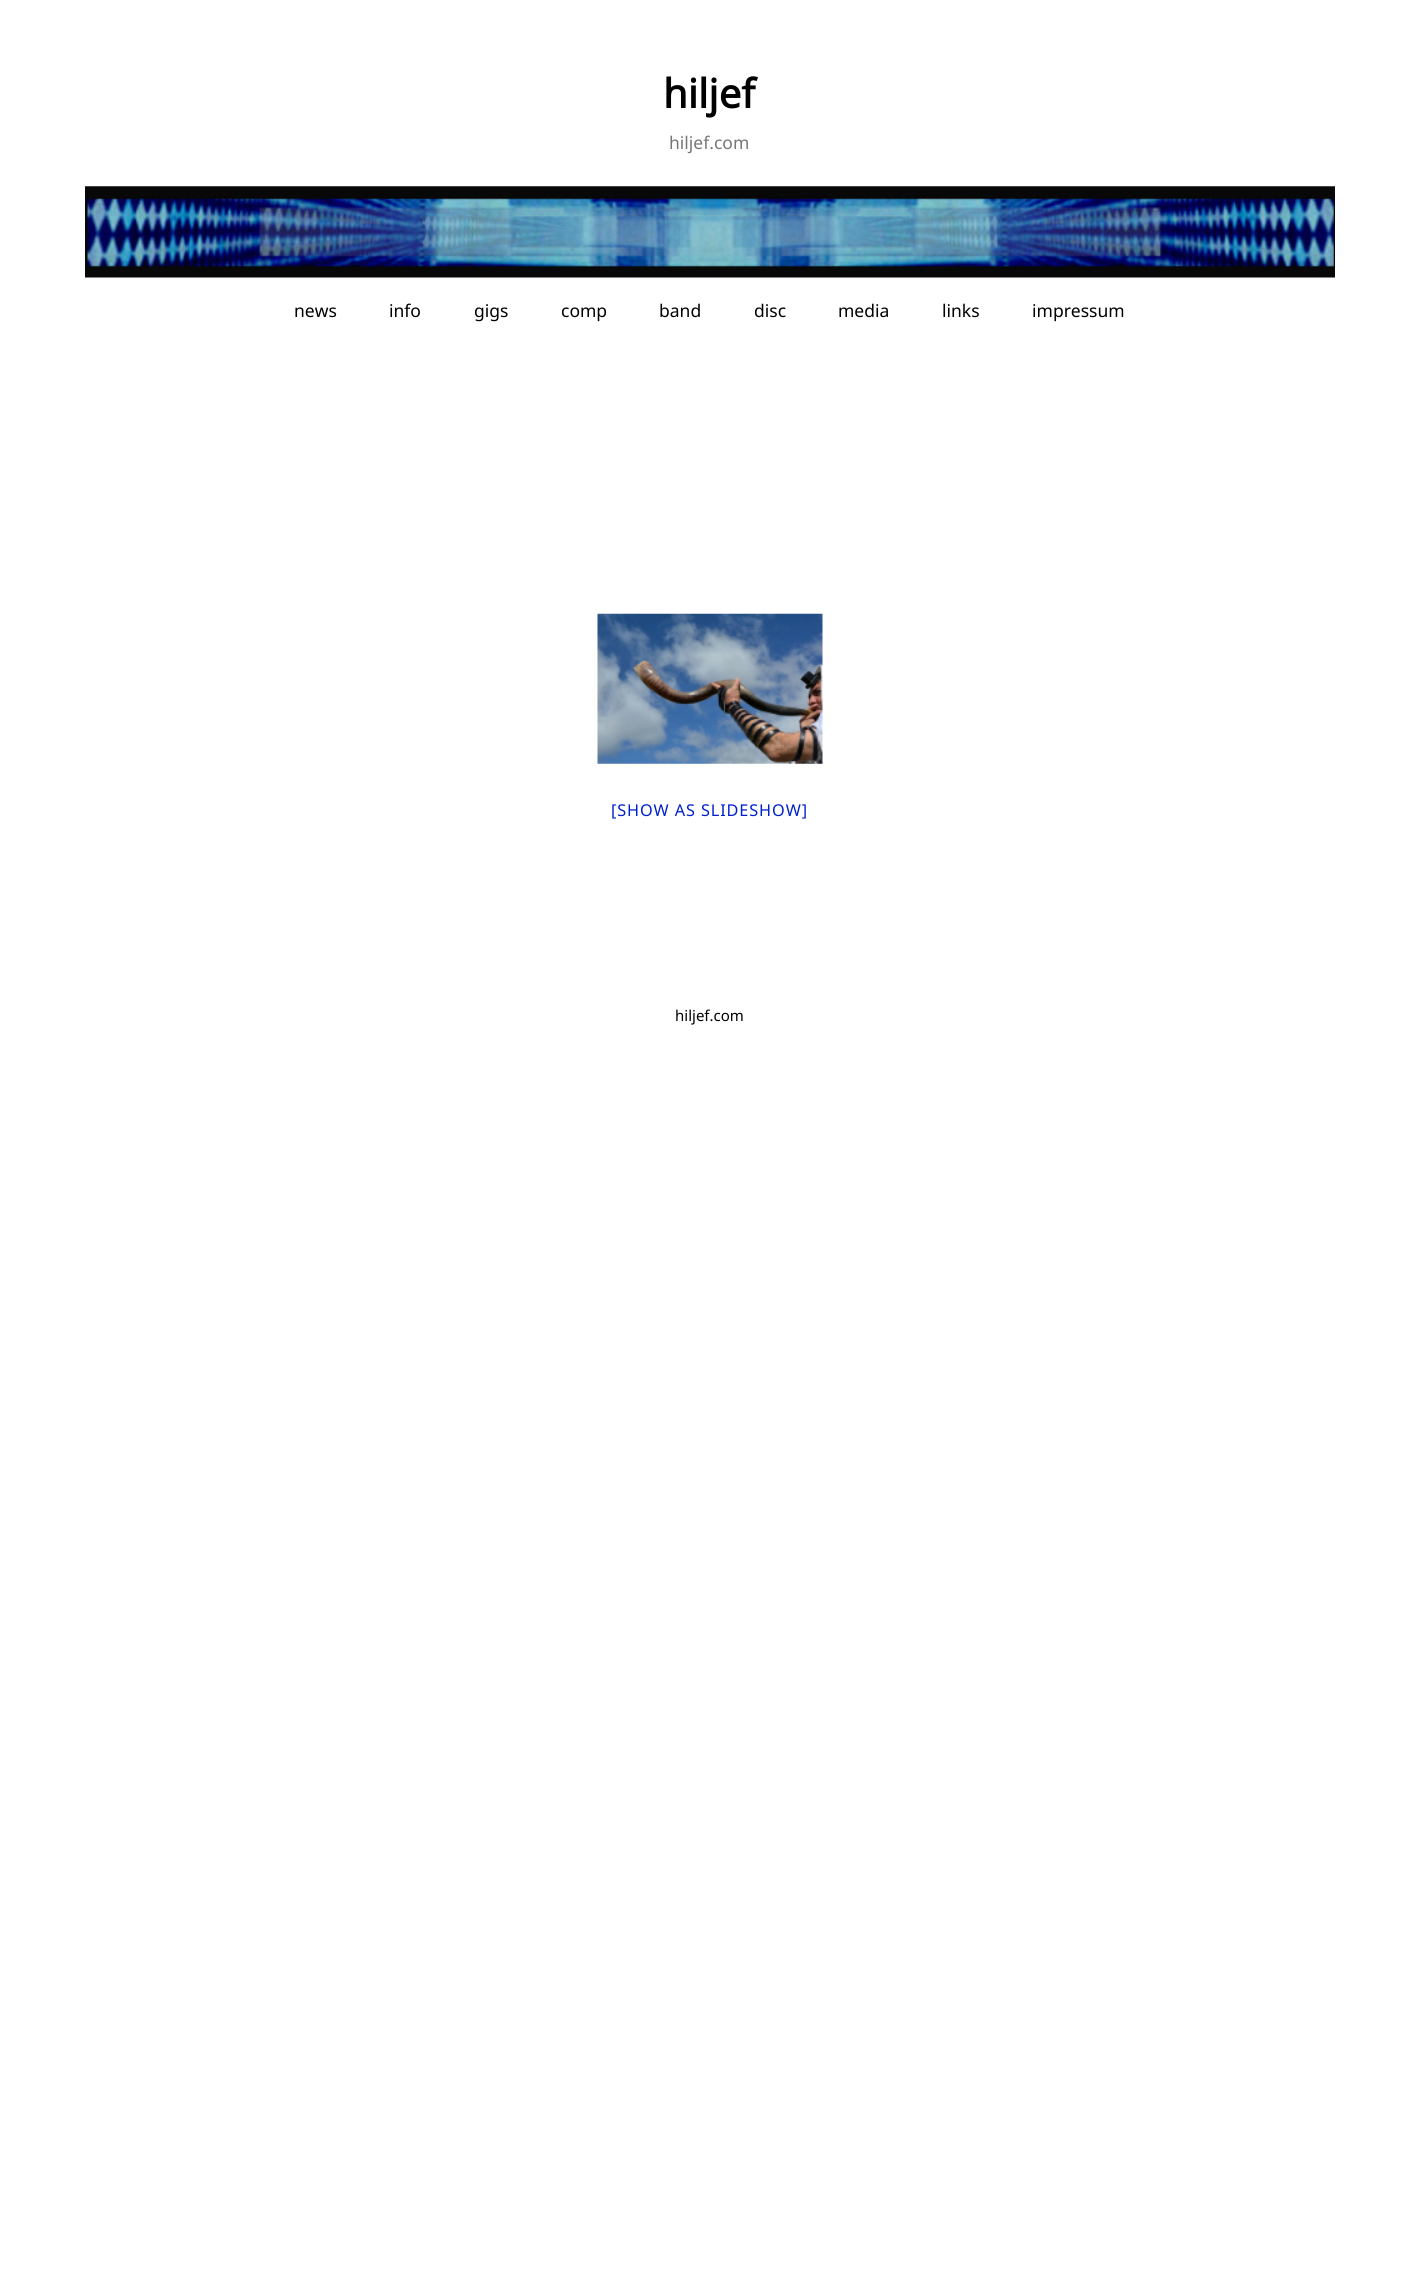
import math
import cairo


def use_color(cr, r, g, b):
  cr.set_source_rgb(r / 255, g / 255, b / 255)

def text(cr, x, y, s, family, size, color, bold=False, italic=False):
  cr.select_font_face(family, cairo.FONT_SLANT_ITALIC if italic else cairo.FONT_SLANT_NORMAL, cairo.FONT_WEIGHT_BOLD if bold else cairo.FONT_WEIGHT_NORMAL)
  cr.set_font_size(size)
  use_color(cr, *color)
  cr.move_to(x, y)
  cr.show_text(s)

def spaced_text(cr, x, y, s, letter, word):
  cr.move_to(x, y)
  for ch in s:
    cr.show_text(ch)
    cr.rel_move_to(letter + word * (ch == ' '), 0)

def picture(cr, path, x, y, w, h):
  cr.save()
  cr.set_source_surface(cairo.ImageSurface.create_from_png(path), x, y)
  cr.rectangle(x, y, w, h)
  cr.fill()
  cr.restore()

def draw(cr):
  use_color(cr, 255, 255, 255)
  cr.paint()
  picture(cr, "img_01.png", 85, 186, 1250, 92)
  picture(cr, "img_02.png", 597, 613, 226, 151)
  text(cr, 663, 108, "hiljef", "Noto Sans", 40, (0, 0, 0), bold=True)
  text(cr, 669, 149, "hiljef.com", "Noto Sans", 17.5, (119, 119, 119))
  text(cr, 294, 317, "news", "Noto Sans", 17.5, (0, 0, 0))
  text(cr, 389, 317, "info", "Noto Sans", 17.5, (0, 0, 0))
  text(cr, 474, 317, "gigs", "Noto Sans", 17.5, (0, 0, 0))
  text(cr, 561, 317, "comp", "Noto Sans", 17.5, (0, 0, 0))
  text(cr, 659, 317, "band", "Noto Sans", 17.5, (0, 0, 0))
  text(cr, 754, 317, "disc", "Noto Sans", 17.5, (0, 0, 0))
  text(cr, 838, 317, "media", "Noto Sans", 17.5, (0, 0, 0))
  text(cr, 942, 317, "links", "Noto Sans", 17.5, (0, 0, 0))
  text(cr, 1032, 317, "impressum", "Noto Sans", 17.5, (0, 0, 0))
  cr.set_font_size(16.25)
  use_color(cr, 0, 31, 206)
  spaced_text(cr, 611, 816, "[SHOW AS SLIDESHOW]", 0.9, 0)
  text(cr, 675, 1021, "hiljef.com", "Noto Sans", 15, (0, 0, 0))


surface = cairo.ImageSurface(cairo.FORMAT_RGB24, 1418, 2281)
cr = cairo.Context(surface)
options = cairo.FontOptions()
options.set_hint_metrics(cairo.HINT_METRICS_OFF)
options.set_hint_style(cairo.HINT_STYLE_NONE)
cr.set_font_options(options)
cr.set_miter_limit(4)
draw(cr)
surface.write_to_png("out.png")
